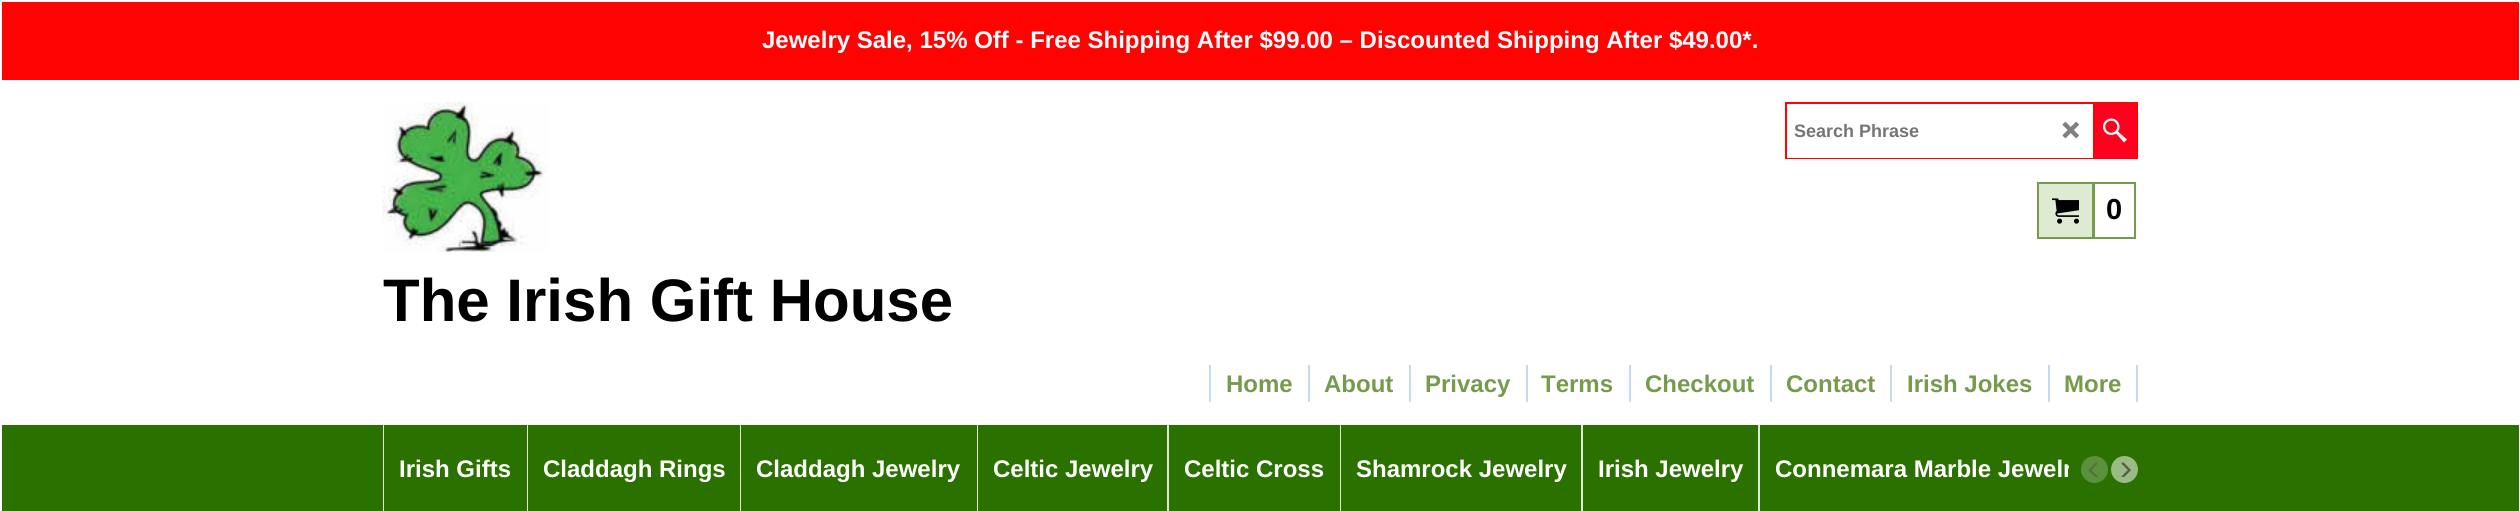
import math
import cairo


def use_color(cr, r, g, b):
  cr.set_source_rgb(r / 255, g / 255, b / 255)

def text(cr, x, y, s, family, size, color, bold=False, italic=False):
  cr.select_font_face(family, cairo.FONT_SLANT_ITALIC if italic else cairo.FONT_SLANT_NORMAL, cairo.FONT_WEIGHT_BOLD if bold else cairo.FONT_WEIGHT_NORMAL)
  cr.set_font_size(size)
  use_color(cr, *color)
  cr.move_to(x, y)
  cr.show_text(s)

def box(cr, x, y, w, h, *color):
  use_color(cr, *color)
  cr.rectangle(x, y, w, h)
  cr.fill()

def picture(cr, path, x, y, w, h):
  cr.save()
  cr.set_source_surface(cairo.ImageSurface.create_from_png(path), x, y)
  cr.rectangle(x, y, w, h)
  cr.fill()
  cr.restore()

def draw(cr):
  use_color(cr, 255, 255, 255)
  cr.paint()
  box(cr, 2, 2, 2517, 78, 255, 3, 3)
  cr.rectangle(1786, 103, 351, 55)
  cr.stroke()
  box(cr, 1787, 157, 306, 1, 255, 255, 255)
  picture(cr, "img_01.png", 2062, 121, 17, 18)
  box(cr, 2095, 104, 41, 54, 255, 0, 31)
  box(cr, 2093, 104, 2, 54, 255, 3, 3)
  picture(cr, "img_02.png", 2103, 118, 24, 25)
  use_color(cr, 223, 234, 211)
  cr.rectangle(2038, 183, 55, 55)
  cr.fill_preserve()
  use_color(cr, 117, 155, 77)
  cr.stroke()
  picture(cr, "img_03.png", 2052, 198, 27, 26)
  cr.rectangle(2094, 183, 41, 55)
  cr.stroke()
  picture(cr, "img_04.png", 382, 102, 166, 150)
  box(cr, 1209, 365, 2, 37, 194, 219, 242)
  box(cr, 1308, 365, 2, 37, 194, 219, 242)
  box(cr, 1409, 365, 2, 37, 194, 219, 242)
  box(cr, 1526, 365, 2, 37, 194, 219, 242)
  box(cr, 1629, 365, 2, 37, 194, 219, 242)
  box(cr, 1770, 365, 2, 37, 194, 219, 242)
  box(cr, 1890, 365, 2, 37, 194, 219, 242)
  box(cr, 2048, 365, 2, 37, 194, 219, 242)
  box(cr, 2136, 365, 2, 37, 194, 219, 242)
  box(cr, 2, 425, 2517, 86, 42, 113, 0)
  box(cr, 383, 425, 1, 86, 223, 234, 211)
  box(cr, 527, 425, 1, 86, 223, 234, 211)
  box(cr, 740, 425, 1, 86, 223, 234, 211)
  box(cr, 977, 425, 1, 86, 223, 234, 211)
  box(cr, 1167, 425, 2, 86, 223, 234, 211)
  box(cr, 1340, 425, 1, 86, 223, 234, 211)
  box(cr, 1581, 425, 2, 86, 223, 234, 211)
  box(cr, 1758, 425, 2, 86, 223, 234, 211)
  use_color(cr, 90, 145, 58)
  cr.arc(2094.5, 469.5, 13.5, 0, 2 * math.pi)
  cr.fill()
  picture(cr, "img_05.png", 2088, 462, 10, 15)
  use_color(cr, 154, 187, 134)
  cr.arc(2124.5, 469.5, 13.5, 0, 2 * math.pi)
  cr.fill()
  picture(cr, "img_06.png", 2121, 462, 10, 15)
  text(cr, 762, 48, "Jewelry Sale, 15% Off - Free Shipping After $99.00 – Discounted Shipping After $49.00*.", "Liberation Sans", 24, (255, 255, 255), bold=True)
  text(cr, 1794, 137, "Search Phrase", "Liberation Sans", 18, (117, 117, 117), bold=True)
  text(cr, 2106, 219, "0", "Liberation Sans", 29, (0, 0, 0), bold=True)
  text(cr, 383, 321, "The Irish Gift House", "Liberation Sans", 60, (0, 0, 0), bold=True)
  text(cr, 1226, 392, "Home", "Liberation Sans", 24, (117, 155, 77), bold=True)
  text(cr, 1324, 392, "About", "Liberation Sans", 24, (117, 155, 77), bold=True)
  text(cr, 1425, 392, "Privacy", "Liberation Sans", 24, (117, 155, 77), bold=True)
  text(cr, 1541, 392, "Terms", "Liberation Sans", 24, (117, 155, 77), bold=True)
  text(cr, 1645, 392, "Checkout", "Liberation Sans", 24, (117, 155, 77), bold=True)
  text(cr, 1786, 392, "Contact", "Liberation Sans", 24, (117, 155, 77), bold=True)
  text(cr, 1907, 392, "Irish Jokes", "Liberation Sans", 24, (117, 155, 77), bold=True)
  text(cr, 2064, 392, "More", "Liberation Sans", 24, (117, 155, 77), bold=True)
  text(cr, 399, 477, "Irish Gifts", "Liberation Sans", 24, (255, 255, 255), bold=True)
  text(cr, 543, 477, "Claddagh Rings", "Liberation Sans", 24, (255, 255, 255), bold=True)
  text(cr, 756, 477, "Claddagh Jewelry", "Liberation Sans", 24, (255, 255, 255), bold=True)
  text(cr, 993, 477, "Celtic Jewelry", "Liberation Sans", 24, (255, 255, 255), bold=True)
  text(cr, 1184, 477, "Celtic Cross", "Liberation Sans", 24, (255, 255, 255), bold=True)
  text(cr, 1356, 477, "Shamrock Jewelry", "Liberation Sans", 24, (255, 255, 255), bold=True)
  text(cr, 1598, 477, "Irish Jewelry", "Liberation Sans", 24, (255, 255, 255), bold=True)
  cr.save()
  cr.rectangle(383, 425, 1686, 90)
  cr.clip()
  text(cr, 1775, 477, "Connemara Marble Jewelr", "Liberation Sans", 24, (255, 255, 255), bold=True)
  cr.restore()


surface = cairo.ImageSurface(cairo.FORMAT_RGB24, 2520, 511)
cr = cairo.Context(surface)
options = cairo.FontOptions()
options.set_hint_metrics(cairo.HINT_METRICS_OFF)
options.set_hint_style(cairo.HINT_STYLE_NONE)
cr.set_font_options(options)
cr.set_miter_limit(4)
draw(cr)
surface.write_to_png("out.png")
